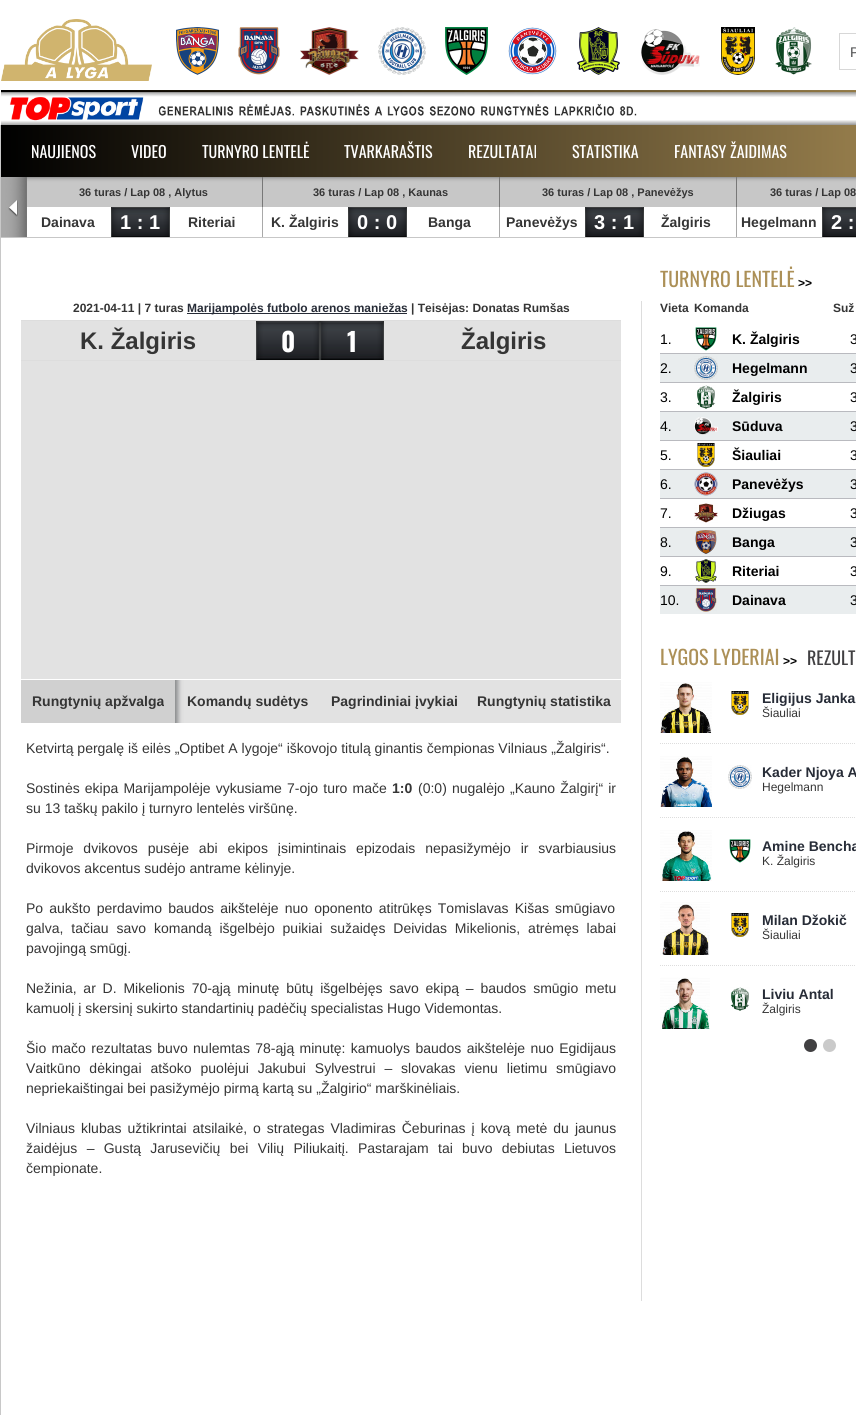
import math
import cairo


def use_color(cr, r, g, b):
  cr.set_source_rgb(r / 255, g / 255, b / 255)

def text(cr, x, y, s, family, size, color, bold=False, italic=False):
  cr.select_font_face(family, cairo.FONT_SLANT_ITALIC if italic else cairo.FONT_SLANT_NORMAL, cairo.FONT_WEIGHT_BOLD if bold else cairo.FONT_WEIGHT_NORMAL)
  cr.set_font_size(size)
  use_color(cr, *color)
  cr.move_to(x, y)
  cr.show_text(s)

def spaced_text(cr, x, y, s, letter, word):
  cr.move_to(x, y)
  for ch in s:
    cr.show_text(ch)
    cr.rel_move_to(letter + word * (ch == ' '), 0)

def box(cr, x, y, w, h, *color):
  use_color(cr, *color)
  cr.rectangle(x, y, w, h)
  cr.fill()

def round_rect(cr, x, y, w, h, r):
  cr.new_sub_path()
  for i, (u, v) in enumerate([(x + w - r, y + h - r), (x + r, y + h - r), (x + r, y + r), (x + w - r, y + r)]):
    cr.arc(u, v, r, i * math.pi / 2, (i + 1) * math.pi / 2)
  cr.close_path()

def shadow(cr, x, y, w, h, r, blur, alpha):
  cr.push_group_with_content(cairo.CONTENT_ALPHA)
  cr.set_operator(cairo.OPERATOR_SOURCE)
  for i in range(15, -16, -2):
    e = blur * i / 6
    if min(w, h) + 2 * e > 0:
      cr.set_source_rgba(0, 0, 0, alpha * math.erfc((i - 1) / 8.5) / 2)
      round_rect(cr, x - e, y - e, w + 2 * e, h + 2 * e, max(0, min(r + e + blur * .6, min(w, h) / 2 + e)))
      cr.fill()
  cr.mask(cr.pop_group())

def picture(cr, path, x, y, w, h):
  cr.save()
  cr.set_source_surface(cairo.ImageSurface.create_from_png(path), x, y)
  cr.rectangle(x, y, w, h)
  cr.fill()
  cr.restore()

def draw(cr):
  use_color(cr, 255, 255, 255)
  cr.paint()
  picture(cr, "img_01.png", 1, 19, 151, 62)
  picture(cr, "img_02.png", 176, 27, 43, 48)
  picture(cr, "img_03.png", 238, 27, 42, 48)
  picture(cr, "img_04.png", 300, 27, 59, 48)
  picture(cr, "img_05.png", 378, 27, 48, 48)
  picture(cr, "img_06.png", 445, 27, 43, 48)
  picture(cr, "img_07.png", 508, 27, 49, 48)
  picture(cr, "img_08.png", 577, 27, 43, 48)
  picture(cr, "img_09.png", 641, 29, 59, 46)
  picture(cr, "img_10.png", 721, 27, 34, 48)
  picture(cr, "img_11.png", 775, 27, 37, 48)
  cr.rectangle(839.5, 33.5, 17, 36)
  use_color(cr, 215, 215, 215)
  cr.set_line_width(1)
  cr.stroke()
  picture(cr, "img_12.png", 1, 90, 855, 35)
  box(cr, 0, 125, 1, 1290, 200, 200, 200)
  gradient = cairo.LinearGradient(1, 151, 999, 151)
  gradient.add_color_stop_rgba(0, 0, 0, 0, 1)
  gradient.add_color_stop_rgba(1, 0.675, 0.565, 0.341, 1)
  cr.set_source(gradient)
  cr.rectangle(1, 125, 855, 52)
  cr.fill()
  box(cr, 1, 237, 855, 1, 199, 199, 199)
  picture(cr, "img_13.png", 1, 177, 26, 60)
  picture(cr, "img_14.png", 27, 177, 235, 30)
  box(cr, 262, 177, 1, 30, 120, 120, 120)
  box(cr, 262, 207, 1, 30, 169, 169, 169)
  picture(cr, "img_15.png", 111, 207, 59, 30)
  picture(cr, "img_16.png", 263, 177, 236, 30)
  box(cr, 499, 177, 1, 30, 120, 120, 120)
  box(cr, 499, 207, 1, 30, 169, 169, 169)
  picture(cr, "img_15.png", 348, 207, 59, 30)
  picture(cr, "img_16.png", 500, 177, 236, 30)
  box(cr, 736, 177, 1, 30, 120, 120, 120)
  box(cr, 736, 207, 1, 30, 169, 169, 169)
  picture(cr, "img_15.png", 585, 207, 59, 30)
  picture(cr, "img_17.png", 737, 177, 119, 30)
  picture(cr, "img_18.png", 822, 207, 34, 30)
  box(cr, 641, 301, 1, 1000, 221, 221, 221)
  box(cr, 187, 313, 220, 1, 39, 44, 55)
  box(cr, 21, 321, 600, 402, 226, 226, 226)
  box(cr, 21, 320, 600, 1, 221, 221, 221)
  box(cr, 21, 360, 600, 1, 221, 221, 221)
  picture(cr, "img_19.png", 256, 321, 64, 39)
  picture(cr, "img_19.png", 320, 321, 64, 39)
  box(cr, 21, 679, 600, 1, 255, 255, 255)
  cr.save()
  cr.rectangle(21, 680, 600, 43)
  cr.clip()
  use_color(cr, 39, 43, 46)
  shadow(cr, 18, 677, 160, 49, 0, 2.5, 0.5)
  cr.restore()
  box(cr, 21, 680, 154, 43, 208, 208, 208)
  picture(cr, "img_20.png", 695, 327, 22, 24)
  box(cr, 660, 353, 196, 1, 185, 186, 191)
  box(cr, 660, 354, 196, 28, 233, 237, 238)
  picture(cr, "img_21.png", 694, 356, 24, 24)
  box(cr, 660, 382, 196, 1, 185, 186, 191)
  picture(cr, "img_22.png", 696, 385, 20, 24)
  box(cr, 660, 411, 196, 1, 185, 186, 191)
  box(cr, 660, 412, 196, 28, 233, 237, 238)
  picture(cr, "img_23.png", 694, 417, 24, 18)
  box(cr, 660, 440, 196, 1, 185, 186, 191)
  picture(cr, "img_24.png", 697, 443, 18, 24)
  box(cr, 660, 469, 196, 1, 185, 186, 191)
  box(cr, 660, 470, 196, 28, 233, 237, 238)
  picture(cr, "img_25.png", 694, 472, 24, 24)
  box(cr, 660, 498, 196, 1, 185, 186, 191)
  picture(cr, "img_26.png", 694, 503, 24, 20)
  box(cr, 660, 527, 196, 1, 185, 186, 191)
  box(cr, 660, 528, 196, 28, 233, 237, 238)
  picture(cr, "img_27.png", 695, 530, 22, 24)
  box(cr, 660, 556, 196, 1, 185, 186, 191)
  picture(cr, "img_28.png", 695, 559, 22, 24)
  box(cr, 660, 585, 196, 1, 185, 186, 191)
  box(cr, 660, 586, 196, 28, 233, 237, 238)
  picture(cr, "img_29.png", 695, 588, 22, 24)
  cr.new_path()
  cr.move_to(660, 743.5)
  cr.line_to(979, 743.5)
  use_color(cr, 221, 221, 221)
  cr.set_dash([1, 1])
  cr.stroke()
  picture(cr, "img_30.png", 660, 682, 52, 51)
  picture(cr, "img_24.png", 731, 691, 18, 24)
  cr.new_path()
  cr.move_to(660, 817.5)
  cr.line_to(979, 817.5)
  cr.stroke()
  picture(cr, "img_31.png", 660, 756, 52, 51)
  picture(cr, "img_32.png", 728, 765, 24, 24)
  cr.new_path()
  cr.move_to(660, 891.5)
  cr.line_to(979, 891.5)
  cr.stroke()
  picture(cr, "img_33.png", 660, 830, 52, 51)
  picture(cr, "img_20.png", 729, 839, 22, 24)
  cr.new_path()
  cr.move_to(660, 965.5)
  cr.line_to(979, 965.5)
  cr.stroke()
  picture(cr, "img_34.png", 660, 902, 50, 53)
  picture(cr, "img_24.png", 731, 913, 18, 24)
  picture(cr, "img_35.png", 660, 977, 50, 52)
  picture(cr, "img_22.png", 730, 987, 20, 24)
  use_color(cr, 65, 64, 66)
  cr.arc(810.5, 1045.5, 6.5, 0, 2 * math.pi)
  cr.fill()
  use_color(cr, 202, 202, 202)
  cr.arc(829.5, 1045.5, 6.5, 0, 2 * math.pi)
  cr.fill()
  text(cr, 850, 57, "P", "Liberation Sans", 14, (77, 78, 79))
  text(cr, 31, 158, "NAUJIENOS", "Oswald", 16, (255, 255, 255))
  text(cr, 131, 158, "VIDEO", "Oswald", 16, (255, 255, 255))
  text(cr, 202, 158, "TURNYRO LENTELĖ", "Oswald", 16, (255, 255, 255))
  text(cr, 344, 158, "TVARKARAŠTIS", "Oswald", 16, (255, 255, 255))
  text(cr, 468, 158, "REZULTATAI", "Oswald", 16, (255, 255, 255))
  text(cr, 572, 158, "STATISTIKA", "Oswald", 16, (255, 255, 255))
  text(cr, 674, 158, "FANTASY ŽAIDIMAS", "Oswald", 16, (255, 255, 255))
  text(cr, 79, 196, "36 turas / Lap 08 , Alytus", "Liberation Sans", 11, (53, 53, 53), bold=True)
  text(cr, 41, 227, "Dainava", "Liberation Sans", 14, (53, 53, 53), bold=True)
  text(cr, 120, 229, "1 : 1", "Liberation Sans", 20, (255, 255, 255), bold=True)
  text(cr, 188, 227, "Riteriai", "Liberation Sans", 14, (53, 53, 53), bold=True)
  text(cr, 313, 196, "36 turas / Lap 08 , Kaunas", "Liberation Sans", 11, (53, 53, 53), bold=True)
  text(cr, 271, 227, "K. Žalgiris", "Liberation Sans", 14, (53, 53, 53), bold=True)
  text(cr, 357, 229, "0 : 0", "Liberation Sans", 20, (255, 255, 255), bold=True)
  text(cr, 428, 227, "Banga", "Liberation Sans", 14, (53, 53, 53), bold=True)
  text(cr, 542, 196, "36 turas / Lap 08 , Panevėžys", "Liberation Sans", 11, (53, 53, 53), bold=True)
  text(cr, 506, 227, "Panevėžys", "Liberation Sans", 14, (53, 53, 53), bold=True)
  text(cr, 594, 229, "3 : 1", "Liberation Sans", 20, (255, 255, 255), bold=True)
  text(cr, 661, 227, "Žalgiris", "Liberation Sans", 14, (53, 53, 53), bold=True)
  text(cr, 770, 196, "36 turas / Lap 08", "Liberation Sans", 11, (53, 53, 53), bold=True)
  text(cr, 741, 227, "Hegelmann", "Liberation Sans", 14, (53, 53, 53), bold=True)
  text(cr, 831, 229, "2 :", "Liberation Sans", 20, (255, 255, 255), bold=True)
  text(cr, 73, 312, "2021-04-11 | 7 turas", "Liberation Sans", 12, (53, 53, 53), bold=True)
  text(cr, 187, 312, "Marijampolės futbolo arenos maniežas", "Liberation Sans", 12, (39, 44, 55), bold=True)
  text(cr, 411, 312, "| Teisėjas: Donatas Rumšas", "Liberation Sans", 12, (53, 53, 53), bold=True)
  text(cr, 80, 349, "K. Žalgiris", "Liberation Sans", 24, (53, 53, 53), bold=True)
  text(cr, 281, 352, "0", "Oswald", 26, (255, 255, 255), bold=True)
  text(cr, 347, 352, "1", "Oswald", 26, (255, 255, 255), bold=True)
  text(cr, 461, 349, "Žalgiris", "Liberation Sans", 24, (53, 53, 53), bold=True)
  text(cr, 32, 706, "Rungtynių apžvalga", "Liberation Sans", 14, (53, 53, 53), bold=True)
  text(cr, 187, 706, "Komandų sudėtys", "Liberation Sans", 14, (53, 53, 53), bold=True)
  text(cr, 331, 706, "Pagrindiniai įvykiai", "Liberation Sans", 14, (53, 53, 53), bold=True)
  text(cr, 477, 706, "Rungtynių statistika", "Liberation Sans", 14, (53, 53, 53), bold=True)
  text(cr, 26, 753, "Ketvirtą pergalę iš eilės „Optibet A lygoje“ iškovojo titulą ginantis čempionas Vilniaus „Žalgiris“.", "Liberation Sans", 14, (53, 53, 53))
  spaced_text(cr, 26, 793, "Sostinės ekipa Marijampolėje vykusiame 7-ojo turo mače", 0, 1.25)
  text(cr, 392, 793, "1:0", "Liberation Sans", 14, (53, 53, 53), bold=True)
  cr.select_font_face("Liberation Sans")
  spaced_text(cr, 418, 793, "(0:0) nugalėjo „Kauno Žalgirį“ ir", 0, 1.25)
  text(cr, 26, 813, "su 13 taškų pakilo į turnyro lentelės viršūnę.", "Liberation Sans", 14, (53, 53, 53))
  spaced_text(cr, 26, 853, "Pirmoje dvikovos pusėje abi ekipos įsimintinais epizodais nepasižymėjo ir svarbiausius", 0, 6)
  text(cr, 26, 873, "dvikovos akcentus sudėjo antrame kėlinyje.", "Liberation Sans", 14, (53, 53, 53))
  spaced_text(cr, 26, 913, "Po aukšto perdavimo baudos aikštelėje nuo oponento atitrūkęs Tomislavas Kišas smūgiavo", 0, 2.25)
  spaced_text(cr, 26, 933, "galva, tačiau savo komandą išgelbėjo puikiai sužaidęs Deividas Mikelionis, atrėmęs labai", 0, 4)
  text(cr, 26, 953, "pavojingą smūgį.", "Liberation Sans", 14, (53, 53, 53))
  spaced_text(cr, 26, 993, "Nežinia, ar D. Mikelionis 70-ąją minutę būtų išgelbėjęs savo ekipą – baudos smūgio metu", 0, 2.9)
  text(cr, 26, 1013, "kamuolį į skersinį sukirto standartinių padėčių specialistas Hugo Videmontas.", "Liberation Sans", 14, (53, 53, 53))
  spaced_text(cr, 26, 1053, "Šio mačo rezultatas buvo nulemtas 78-ąją minutę: kamuolys baudos aikštelėje nuo Egidijaus", 0, 1.5)
  spaced_text(cr, 26, 1073, "Vaitkūno dėkingai atšoko puolėjui Jakubui Sylvestrui – slovakas vienu lietimu smūgiavo", 0, 5)
  text(cr, 26, 1093, "nepriekaištingai bei pasižymėjo pirmą kartą su „Žalgirio“ marškinėliais.", "Liberation Sans", 14, (53, 53, 53))
  spaced_text(cr, 26, 1133, "Vilniaus klubas užtikrintai atsilaikė, o strategas Vladimiras Čeburinas į kovą metė du jaunus", 0, 2.1)
  spaced_text(cr, 26, 1153, "žaidėjus – Gustą Jarusevičių bei Vilių Piliukaitį. Pastarajam tai buvo debiutas Lietuvos", 0, 5.4)
  text(cr, 26, 1173, "čempionate.", "Liberation Sans", 14, (53, 53, 53))
  text(cr, 660, 287, "TURNYRO LENTELĖ", "Oswald", 20, (172, 144, 87))
  text(cr, 798, 287, ">>", "Liberation Sans", 12, (0, 0, 0), bold=True)
  text(cr, 660, 312, "Vieta", "Liberation Sans", 12, (53, 53, 53), bold=True)
  text(cr, 694, 312, "Komanda", "Liberation Sans", 12, (53, 53, 53), bold=True)
  text(cr, 833, 312, "Suž", "Liberation Sans", 12, (53, 53, 53), bold=True)
  text(cr, 660, 344, "1.", "Liberation Sans", 14, (0, 0, 0))
  text(cr, 732, 344, "K. Žalgiris", "Liberation Sans", 14, (0, 0, 0), bold=True)
  text(cr, 850, 344, "3", "Liberation Sans", 14, (0, 0, 0))
  text(cr, 660, 373, "2.", "Liberation Sans", 14, (0, 0, 0))
  text(cr, 732, 373, "Hegelmann", "Liberation Sans", 14, (0, 0, 0), bold=True)
  text(cr, 850, 373, "3", "Liberation Sans", 14, (0, 0, 0))
  text(cr, 660, 402, "3.", "Liberation Sans", 14, (0, 0, 0))
  text(cr, 732, 402, "Žalgiris", "Liberation Sans", 14, (0, 0, 0), bold=True)
  text(cr, 850, 402, "3", "Liberation Sans", 14, (0, 0, 0))
  text(cr, 660, 431, "4.", "Liberation Sans", 14, (0, 0, 0))
  text(cr, 732, 431, "Sūduva", "Liberation Sans", 14, (0, 0, 0), bold=True)
  text(cr, 850, 431, "3", "Liberation Sans", 14, (0, 0, 0))
  text(cr, 660, 460, "5.", "Liberation Sans", 14, (0, 0, 0))
  text(cr, 732, 460, "Šiauliai", "Liberation Sans", 14, (0, 0, 0), bold=True)
  text(cr, 850, 460, "3", "Liberation Sans", 14, (0, 0, 0))
  text(cr, 660, 489, "6.", "Liberation Sans", 14, (0, 0, 0))
  text(cr, 732, 489, "Panevėžys", "Liberation Sans", 14, (0, 0, 0), bold=True)
  text(cr, 850, 489, "3", "Liberation Sans", 14, (0, 0, 0))
  text(cr, 660, 518, "7.", "Liberation Sans", 14, (0, 0, 0))
  text(cr, 732, 518, "Džiugas", "Liberation Sans", 14, (0, 0, 0), bold=True)
  text(cr, 850, 518, "3", "Liberation Sans", 14, (0, 0, 0))
  text(cr, 660, 547, "8.", "Liberation Sans", 14, (0, 0, 0))
  text(cr, 732, 547, "Banga", "Liberation Sans", 14, (0, 0, 0), bold=True)
  text(cr, 850, 547, "3", "Liberation Sans", 14, (0, 0, 0))
  text(cr, 660, 576, "9.", "Liberation Sans", 14, (0, 0, 0))
  text(cr, 732, 576, "Riteriai", "Liberation Sans", 14, (0, 0, 0), bold=True)
  text(cr, 850, 576, "3", "Liberation Sans", 14, (0, 0, 0))
  text(cr, 660, 605, "10.", "Liberation Sans", 14, (0, 0, 0))
  text(cr, 732, 605, "Dainava", "Liberation Sans", 14, (0, 0, 0), bold=True)
  text(cr, 850, 605, "3", "Liberation Sans", 14, (0, 0, 0))
  text(cr, 660, 665, "LYGOS LYDERIAI", "Oswald", 20, (172, 144, 87))
  text(cr, 783, 665, ">>", "Liberation Sans", 12, (0, 0, 0), bold=True)
  text(cr, 807, 665, "REZULT", "Oswald", 18, (65, 64, 66))
  text(cr, 762, 703, "Eligijus Janka", "Liberation Sans", 14, (39, 44, 55), bold=True)
  text(cr, 762, 717, "Šiauliai", "Liberation Sans", 12, (53, 53, 53))
  text(cr, 762, 777, "Kader Njoya A", "Liberation Sans", 14, (39, 44, 55), bold=True)
  text(cr, 762, 791, "Hegelmann", "Liberation Sans", 12, (53, 53, 53))
  text(cr, 762, 851, "Amine Bencha", "Liberation Sans", 14, (39, 44, 55), bold=True)
  text(cr, 762, 865, "K. Žalgiris", "Liberation Sans", 12, (53, 53, 53))
  text(cr, 762, 925, "Milan Džokič", "Liberation Sans", 14, (39, 44, 55), bold=True)
  text(cr, 762, 939, "Šiauliai", "Liberation Sans", 12, (53, 53, 53))
  text(cr, 762, 999, "Liviu Antal", "Liberation Sans", 14, (39, 44, 55), bold=True)
  text(cr, 762, 1013, "Žalgiris", "Liberation Sans", 12, (53, 53, 53))


surface = cairo.ImageSurface(cairo.FORMAT_RGB24, 856, 1415)
cr = cairo.Context(surface)
options = cairo.FontOptions()
options.set_hint_metrics(cairo.HINT_METRICS_OFF)
options.set_hint_style(cairo.HINT_STYLE_NONE)
cr.set_font_options(options)
cr.set_miter_limit(4)
draw(cr)
surface.write_to_png("out.png")
